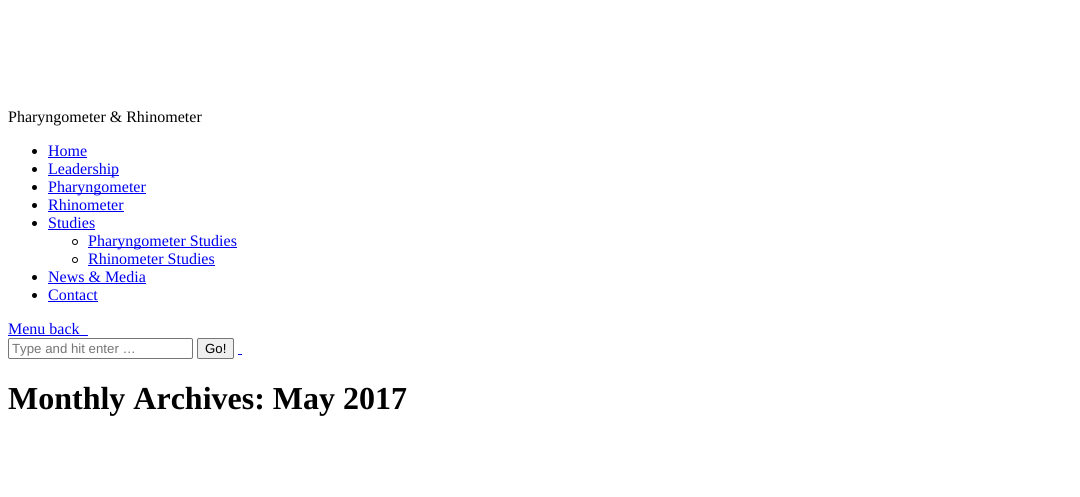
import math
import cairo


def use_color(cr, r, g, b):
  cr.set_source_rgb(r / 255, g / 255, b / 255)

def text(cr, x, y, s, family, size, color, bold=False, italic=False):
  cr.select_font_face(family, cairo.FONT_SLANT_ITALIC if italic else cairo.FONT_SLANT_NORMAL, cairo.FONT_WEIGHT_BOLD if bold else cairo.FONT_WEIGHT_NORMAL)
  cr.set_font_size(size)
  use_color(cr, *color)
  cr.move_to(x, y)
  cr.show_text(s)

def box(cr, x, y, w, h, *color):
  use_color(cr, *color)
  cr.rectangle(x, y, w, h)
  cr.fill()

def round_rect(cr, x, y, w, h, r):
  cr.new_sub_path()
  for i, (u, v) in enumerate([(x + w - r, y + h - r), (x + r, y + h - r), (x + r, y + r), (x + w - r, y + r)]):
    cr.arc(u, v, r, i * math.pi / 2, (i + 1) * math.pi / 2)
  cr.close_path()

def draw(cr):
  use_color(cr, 255, 255, 255)
  cr.paint()
  use_color(cr, 0, 0, 0)
  cr.arc(34.5, 151.5, 2.5, 0, 2 * math.pi)
  cr.fill()
  box(cr, 48, 157, 39, 1, 0, 0, 238)
  use_color(cr, 0, 0, 0)
  cr.arc(34.5, 169.5, 2.5, 0, 2 * math.pi)
  cr.fill()
  box(cr, 48, 175, 71, 1, 0, 0, 238)
  use_color(cr, 0, 0, 0)
  cr.arc(34.5, 187.5, 2.5, 0, 2 * math.pi)
  cr.fill()
  box(cr, 48, 193, 98, 1, 0, 0, 238)
  use_color(cr, 0, 0, 0)
  cr.arc(34.5, 205.5, 2.5, 0, 2 * math.pi)
  cr.fill()
  box(cr, 48, 211, 76, 1, 0, 0, 238)
  use_color(cr, 0, 0, 0)
  cr.arc(34.5, 223.5, 2.5, 0, 2 * math.pi)
  cr.fill()
  box(cr, 48, 229, 47, 1, 0, 0, 238)
  cr.arc(75, 242, 2.5, 0, 2 * math.pi)
  use_color(cr, 0, 0, 0)
  cr.set_line_width(1)
  cr.stroke()
  box(cr, 88, 247, 149, 1, 0, 0, 238)
  cr.arc(75, 260, 2.5, 0, 2 * math.pi)
  use_color(cr, 0, 0, 0)
  cr.stroke()
  box(cr, 88, 265, 127, 1, 0, 0, 238)
  use_color(cr, 0, 0, 0)
  cr.arc(34.5, 277.5, 2.5, 0, 2 * math.pi)
  cr.fill()
  box(cr, 48, 283, 98, 1, 0, 0, 238)
  use_color(cr, 0, 0, 0)
  cr.arc(34.5, 295.5, 2.5, 0, 2 * math.pi)
  cr.fill()
  box(cr, 48, 301, 50, 1, 0, 0, 238)
  box(cr, 8, 335, 80, 1, 0, 0, 238)
  round_rect(cr, 8.5, 338.5, 184, 20, 1.5)
  use_color(cr, 118, 118, 118)
  cr.stroke()
  use_color(cr, 239, 239, 239)
  round_rect(cr, 197.5, 338.5, 36, 20, 1.5)
  cr.fill_preserve()
  use_color(cr, 118, 118, 118)
  cr.stroke()
  box(cr, 238, 354, 4, 1, 0, 0, 238)
  text(cr, 8, 122, "Pharyngometer & Rhinometer", "Liberation Serif", 16, (0, 0, 0))
  text(cr, 48, 156, "Home", "Liberation Serif", 16, (0, 0, 238))
  text(cr, 48, 174, "Leadership", "Liberation Serif", 16, (0, 0, 238))
  text(cr, 48, 192, "Pharyngometer", "Liberation Serif", 16, (0, 0, 238))
  text(cr, 48, 210, "Rhinometer", "Liberation Serif", 16, (0, 0, 238))
  text(cr, 48, 228, "Studies", "Liberation Serif", 16, (0, 0, 238))
  text(cr, 88, 246, "Pharyngometer Studies", "Liberation Serif", 16, (0, 0, 238))
  text(cr, 88, 264, "Rhinometer Studies", "Liberation Serif", 16, (0, 0, 238))
  text(cr, 48, 282, "News & Media", "Liberation Serif", 16, (0, 0, 238))
  text(cr, 48, 300, "Contact", "Liberation Serif", 16, (0, 0, 238))
  text(cr, 8, 334, "Menu back", "Liberation Serif", 16, (0, 0, 238))
  text(cr, 12, 353, "Type and hit enter …", "Liberation Sans", 13.25, (117, 117, 117))
  text(cr, 205, 353, "Go!", "Liberation Sans", 13.25, (0, 0, 0))
  text(cr, 8, 409, "Monthly Archives: May 2017", "Liberation Serif", 32, (0, 0, 0), bold=True)


surface = cairo.ImageSurface(cairo.FORMAT_RGB24, 1080, 497)
cr = cairo.Context(surface)
options = cairo.FontOptions()
options.set_hint_metrics(cairo.HINT_METRICS_OFF)
options.set_hint_style(cairo.HINT_STYLE_NONE)
cr.set_font_options(options)
cr.set_miter_limit(4)
draw(cr)
surface.write_to_png("out.png")
